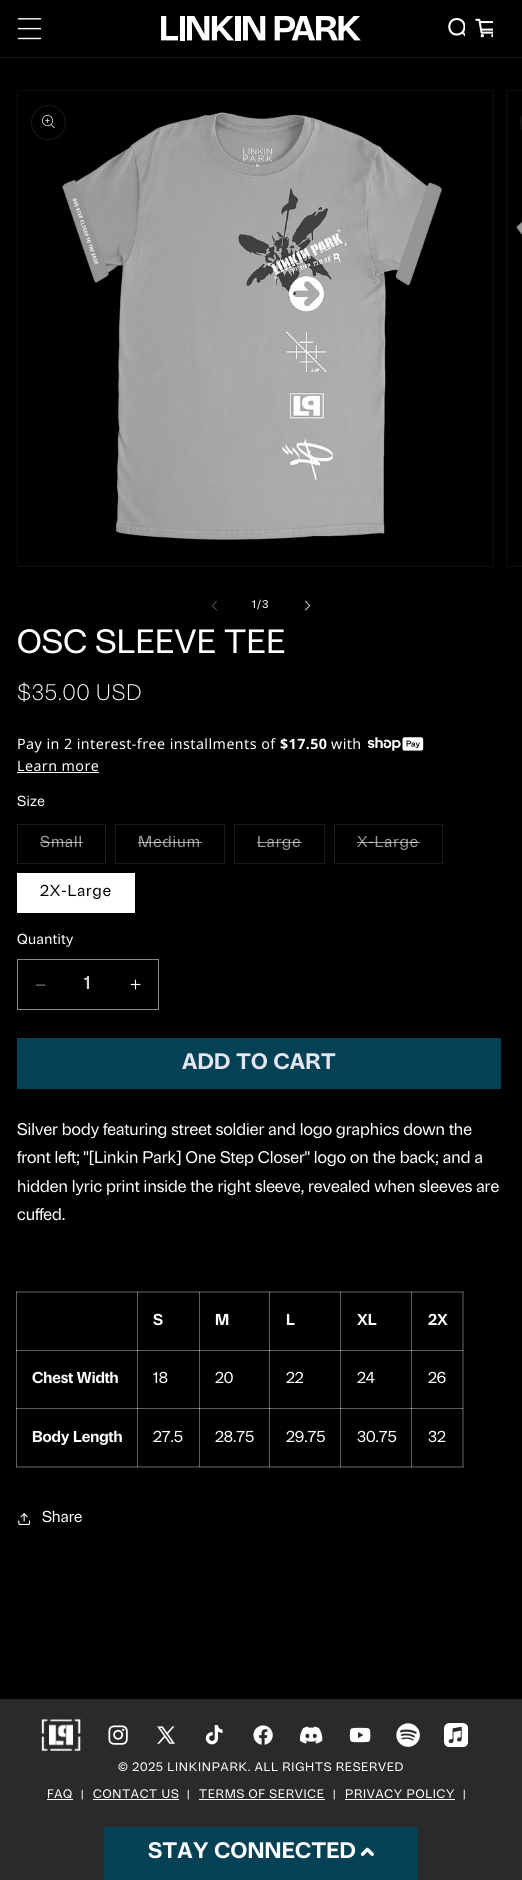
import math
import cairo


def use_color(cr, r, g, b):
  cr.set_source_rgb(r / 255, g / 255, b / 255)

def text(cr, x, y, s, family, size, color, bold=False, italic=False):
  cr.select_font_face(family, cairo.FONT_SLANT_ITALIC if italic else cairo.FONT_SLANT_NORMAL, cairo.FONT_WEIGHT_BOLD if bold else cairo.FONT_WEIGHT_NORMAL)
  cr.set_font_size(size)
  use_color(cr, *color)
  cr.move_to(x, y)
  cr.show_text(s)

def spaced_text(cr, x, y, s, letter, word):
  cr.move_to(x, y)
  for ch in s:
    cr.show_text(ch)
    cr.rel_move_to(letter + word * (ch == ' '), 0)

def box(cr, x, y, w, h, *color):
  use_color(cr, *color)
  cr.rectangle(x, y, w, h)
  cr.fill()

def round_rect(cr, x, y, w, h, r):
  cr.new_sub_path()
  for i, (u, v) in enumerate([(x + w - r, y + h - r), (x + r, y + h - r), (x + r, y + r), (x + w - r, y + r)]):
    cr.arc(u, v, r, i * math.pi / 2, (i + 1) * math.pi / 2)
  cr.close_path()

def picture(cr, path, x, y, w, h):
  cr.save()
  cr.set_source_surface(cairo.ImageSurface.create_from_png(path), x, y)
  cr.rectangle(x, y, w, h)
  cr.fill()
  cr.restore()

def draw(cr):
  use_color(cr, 0, 0, 0)
  cr.paint()
  box(cr, 137, 1292, 63, 1, 51, 51, 51)
  box(cr, 199, 1292, 1, 59, 92, 92, 92)
  box(cr, 199, 1292, 71, 1, 51, 51, 51)
  box(cr, 199, 1292, 1, 1, 151, 151, 151)
  box(cr, 269, 1292, 1, 59, 92, 92, 92)
  box(cr, 269, 1292, 72, 1, 51, 51, 51)
  box(cr, 269, 1292, 1, 1, 151, 151, 151)
  box(cr, 340, 1292, 1, 59, 92, 92, 92)
  box(cr, 340, 1292, 72, 1, 51, 51, 51)
  box(cr, 340, 1292, 1, 1, 151, 151, 151)
  box(cr, 411, 1292, 1, 59, 92, 92, 92)
  box(cr, 462, 1292, 1, 117, 51, 51, 51)
  box(cr, 137, 1350, 63, 1, 51, 51, 51)
  box(cr, 199, 1350, 1, 59, 92, 92, 92)
  box(cr, 199, 1350, 71, 1, 92, 92, 92)
  box(cr, 199, 1350, 1, 1, 202, 202, 202)
  box(cr, 269, 1350, 1, 59, 92, 92, 92)
  box(cr, 269, 1350, 72, 1, 92, 92, 92)
  box(cr, 269, 1350, 1, 1, 213, 213, 213)
  box(cr, 340, 1350, 1, 59, 92, 92, 92)
  box(cr, 340, 1350, 72, 1, 92, 92, 92)
  box(cr, 340, 1350, 1, 1, 213, 213, 213)
  box(cr, 411, 1350, 1, 59, 92, 92, 92)
  box(cr, 137, 1408, 1, 59, 51, 51, 51)
  box(cr, 137, 1466, 63, 1, 51, 51, 51)
  box(cr, 137, 1466, 1, 1, 92, 92, 92)
  box(cr, 137, 1408, 63, 1, 51, 51, 51)
  box(cr, 137, 1408, 1, 1, 92, 92, 92)
  box(cr, 199, 1408, 1, 59, 92, 92, 92)
  box(cr, 199, 1466, 71, 1, 51, 51, 51)
  box(cr, 199, 1466, 1, 1, 151, 151, 151)
  box(cr, 199, 1408, 71, 1, 92, 92, 92)
  box(cr, 199, 1408, 1, 1, 202, 202, 202)
  box(cr, 269, 1408, 1, 59, 92, 92, 92)
  box(cr, 269, 1466, 72, 1, 51, 51, 51)
  box(cr, 269, 1466, 1, 1, 151, 151, 151)
  box(cr, 269, 1408, 72, 1, 92, 92, 92)
  box(cr, 269, 1408, 1, 1, 213, 213, 213)
  box(cr, 340, 1408, 1, 59, 92, 92, 92)
  box(cr, 340, 1466, 72, 1, 51, 51, 51)
  box(cr, 340, 1466, 1, 1, 151, 151, 151)
  box(cr, 340, 1408, 72, 1, 92, 92, 92)
  box(cr, 340, 1408, 1, 1, 213, 213, 213)
  box(cr, 411, 1408, 1, 59, 92, 92, 92)
  box(cr, 411, 1466, 52, 1, 51, 51, 51)
  box(cr, 411, 1466, 1, 1, 151, 151, 151)
  box(cr, 462, 1408, 1, 59, 51, 51, 51)
  box(cr, 462, 1466, 1, 1, 92, 92, 92)
  box(cr, 0, 57, 522, 1, 20, 20, 20)
  picture(cr, "img_01.png", 17, 18, 25, 22)
  picture(cr, "img_02.png", 161, 16, 200, 25)
  cr.save()
  cr.rectangle(446, 16, 19, 25)
  cr.clip()
  cr.new_path()
  cr.move_to(457, 19)
  cr.curve_to(446.5, 19, 447, 35, 457, 34.5)
  cr.curve_to(467, 34, 467, 19.5, 457, 19)
  cr.close_path()
  cr.move_to(462.5, 32.5)
  cr.line_to(468, 38)
  use_color(cr, 255, 255, 255)
  cr.set_line_width(2.1)
  cr.set_line_cap(cairo.LINE_CAP_ROUND)
  cr.set_line_join(cairo.LINE_JOIN_ROUND)
  cr.stroke()
  cr.restore()
  picture(cr, "img_03.png", 475, 18, 18, 20)
  cr.rectangle(17.5, 90.5, 476, 476)
  use_color(cr, 13, 13, 13)
  cr.set_line_width(1)
  cr.stroke()
  picture(cr, "img_05.png", 62, 112, 380, 428)
  cr.arc(48.5, 122.5, 17, 0, 2 * math.pi)
  use_color(cr, 26, 26, 26)
  cr.stroke()
  picture(cr, "img_04.png", 42, 115, 13, 14)
  cr.rectangle(506.5, 90.5, 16, 476)
  use_color(cr, 13, 13, 13)
  cr.stroke()
  round_rect(cr, 520.5, 105.5, 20, 34, 17)
  use_color(cr, 26, 26, 26)
  cr.stroke()
  picture(cr, "img_06.png", 516, 221, 6, 14)
  picture(cr, "img_07.png", 211, 600, 6, 11)
  picture(cr, "img_08.png", 304, 600, 7, 11)
  picture(cr, "img_09.png", 367, 737, 57, 14)
  box(cr, 17, 772, 82, 1, 255, 255, 255)
  cr.rectangle(17.5, 824.5, 88, 39)
  use_color(cr, 26, 26, 26)
  cr.stroke()
  cr.rectangle(115.5, 824.5, 109, 39)
  cr.stroke()
  cr.rectangle(234.5, 824.5, 90, 39)
  cr.stroke()
  cr.rectangle(334.5, 824.5, 108, 39)
  cr.stroke()
  box(cr, 17, 873, 118, 40, 255, 255, 255)
  picture(cr, "img_10.png", 35, 984, 11, 2)
  picture(cr, "img_11.png", 130, 979, 11, 11)
  cr.rectangle(17.5, 959.5, 141, 50)
  use_color(cr, 140, 140, 140)
  cr.stroke()
  box(cr, 17, 1038, 484, 51, 4, 65, 84)
  cr.rectangle(16.5, 1291.5, 447, 176)
  use_color(cr, 51, 51, 51)
  cr.stroke()
  cr.set_source_rgba(1, 1, 1, 0.2)
  cr.rectangle(16, 1408, 122, 1)
  cr.fill()
  cr.rectangle(137, 1408, 1, 59)
  cr.fill()
  cr.rectangle(137, 1408, 63, 1)
  cr.fill()
  cr.rectangle(137, 1350, 1, 59)
  cr.fill()
  cr.rectangle(16, 1350, 122, 1)
  cr.fill()
  cr.rectangle(137, 1350, 1, 59)
  cr.fill()
  cr.rectangle(137, 1350, 63, 1)
  cr.fill()
  cr.rectangle(137, 1292, 1, 59)
  cr.fill()
  cr.rectangle(16, 1292, 122, 1)
  cr.fill()
  cr.rectangle(137, 1292, 1, 59)
  cr.fill()
  cr.rectangle(16, 1466, 122, 1)
  cr.fill()
  cr.rectangle(16, 1408, 1, 59)
  cr.fill()
  cr.rectangle(16, 1408, 122, 1)
  cr.fill()
  cr.rectangle(16, 1350, 1, 59)
  cr.fill()
  cr.rectangle(16, 1350, 122, 1)
  cr.fill()
  cr.rectangle(16, 1292, 1, 59)
  cr.fill()
  box(cr, 411, 1292, 52, 1, 51, 51, 51)
  box(cr, 411, 1292, 1, 1, 151, 151, 151)
  box(cr, 462, 1292, 1, 1, 92, 92, 92)
  box(cr, 411, 1350, 52, 1, 92, 92, 92)
  box(cr, 411, 1350, 1, 1, 213, 213, 213)
  box(cr, 462, 1350, 1, 1, 151, 151, 151)
  box(cr, 411, 1408, 52, 1, 92, 92, 92)
  box(cr, 411, 1408, 1, 1, 213, 213, 213)
  box(cr, 462, 1408, 1, 1, 151, 151, 151)
  picture(cr, "img_12.png", 18, 1513, 13, 12)
  box(cr, 0, 1699, 522, 181, 42, 42, 42)
  picture(cr, "img_13.png", 41, 1719, 40, 32)
  picture(cr, "img_14.png", 108, 1725, 20, 20)
  picture(cr, "img_15.png", 157, 1726, 18, 18)
  picture(cr, "img_16.png", 205, 1725, 18, 20)
  picture(cr, "img_17.png", 253, 1725, 20, 20)
  picture(cr, "img_18.png", 300, 1726, 23, 18)
  picture(cr, "img_19.png", 349, 1727, 22, 16)
  picture(cr, "img_20.png", 396, 1723, 24, 24)
  picture(cr, "img_21.png", 444, 1723, 24, 24)
  box(cr, 47, 1799, 26, 1, 255, 255, 255)
  box(cr, 93, 1799, 86, 1, 255, 255, 255)
  box(cr, 199, 1799, 126, 1, 255, 255, 255)
  box(cr, 345, 1799, 110, 1, 255, 255, 255)
  box(cr, 104, 1827, 314, 53, 4, 65, 84)
  picture(cr, "img_22.png", 361, 1847, 13, 9)
  cr.select_font_face("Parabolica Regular")
  cr.set_font_size(11)
  use_color(cr, 255, 255, 255)
  spaced_text(cr, 252, 608, "1/3", 0.75, 0)
  cr.set_font_size(33)
  spaced_text(cr, 17, 653, "OSC SLEEVE TEE", 0.25, 0)
  cr.select_font_face("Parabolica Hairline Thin")
  cr.set_font_size(22)
  spaced_text(cr, 17, 700, "$35.00 USD", 0.25, 0)
  cr.select_font_face("Noto Sans")
  cr.set_font_size(14.25)
  spaced_text(cr, 17, 749, "Pay in 2 interest-free installments of", 0.45, 0)
  cr.select_font_face("Noto Sans", cairo.FONT_SLANT_NORMAL, cairo.FONT_WEIGHT_BOLD)
  spaced_text(cr, 280, 749, "$17.50", 0.45, 0)
  cr.select_font_face("Noto Sans")
  spaced_text(cr, 331, 749, "with", 0.45, 0)
  spaced_text(cr, 17, 771, "Learn more", 0.45, 0)
  cr.select_font_face("Parabolica Regular")
  spaced_text(cr, 17, 806, "Size", 0.45, 0)
  cr.set_font_size(15.5)
  use_color(cr, 153, 153, 153)
  spaced_text(cr, 40, 847, "Small", 1, 0)
  cr.set_source_rgba(1, 1, 1, 0.6)
  cr.rectangle(40, 842, 43, 1)
  cr.fill()
  use_color(cr, 153, 153, 153)
  spaced_text(cr, 138, 847, "Medium", 1, 0)
  cr.set_source_rgba(1, 1, 1, 0.6)
  cr.rectangle(138, 842, 64, 1)
  cr.fill()
  use_color(cr, 153, 153, 153)
  spaced_text(cr, 257, 847, "Large", 1, 0)
  cr.set_source_rgba(1, 1, 1, 0.6)
  cr.rectangle(257, 842, 45, 1)
  cr.fill()
  use_color(cr, 153, 153, 153)
  spaced_text(cr, 357, 847, "X-Large", 1, 0)
  cr.set_source_rgba(1, 1, 1, 0.6)
  cr.rectangle(357, 842, 63, 1)
  cr.fill()
  use_color(cr, 0, 0, 0)
  spaced_text(cr, 40, 896, "2X-Large", 1, 0)
  cr.set_font_size(14.25)
  use_color(cr, 255, 255, 255)
  spaced_text(cr, 17, 944, "Quantity", 0.45, 0)
  text(cr, 84, 989, "1", "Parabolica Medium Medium", 18, (217, 217, 217))
  cr.select_font_face("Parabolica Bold", cairo.FONT_SLANT_NORMAL, cairo.FONT_WEIGHT_BOLD)
  cr.set_font_size(22)
  use_color(cr, 230, 230, 243)
  spaced_text(cr, 182, 1069, "ADD TO CART", 0.25, 0)
  text(cr, 17, 1135, "Silver body featuring street soldier and logo graphics down the", "Parabolica Regular", 16.5, (255, 255, 255))
  text(cr, 17, 1163, "front left; \"[Linkin Park] One Step Closer\" logo on the back; and a", "Parabolica Regular", 16.5, (255, 255, 255))
  text(cr, 17, 1192, "hidden lyric print inside the right sleeve, revealed when sleeves are", "Parabolica Regular", 16.5, (255, 255, 255))
  text(cr, 17, 1220, "cuffed.", "Parabolica Regular", 16.5, (255, 255, 255))
  text(cr, 153, 1325, "S", "Parabolica Bold", 15.5, (255, 255, 255), bold=True)
  text(cr, 215, 1325, "M", "Parabolica Bold", 15.5, (255, 255, 255), bold=True)
  text(cr, 286, 1325, "L", "Parabolica Bold", 15.5, (255, 255, 255), bold=True)
  text(cr, 357, 1325, "XL", "Parabolica Bold", 15.5, (255, 255, 255), bold=True)
  text(cr, 428, 1325, "2X", "Parabolica Bold", 15.5, (255, 255, 255), bold=True)
  text(cr, 32, 1383, "Chest Width", "Parabolica Bold", 15.5, (255, 255, 255), bold=True)
  text(cr, 153, 1383, "18", "Parabolica Regular", 15.5, (255, 255, 255))
  text(cr, 215, 1383, "20", "Parabolica Regular", 15.5, (255, 255, 255))
  text(cr, 286, 1383, "22", "Parabolica Regular", 15.5, (255, 255, 255))
  text(cr, 357, 1383, "24", "Parabolica Regular", 15.5, (255, 255, 255))
  text(cr, 428, 1383, "26", "Parabolica Regular", 15.5, (255, 255, 255))
  text(cr, 32, 1442, "Body Length", "Parabolica Bold", 15.5, (255, 255, 255), bold=True)
  text(cr, 153, 1442, "27.5", "Parabolica Regular", 15.5, (255, 255, 255))
  text(cr, 215, 1442, "28.75", "Parabolica Regular", 15.5, (255, 255, 255))
  text(cr, 286, 1442, "29.75", "Parabolica Regular", 15.5, (255, 255, 255))
  text(cr, 357, 1442, "30.75", "Parabolica Regular", 15.5, (255, 255, 255))
  text(cr, 428, 1442, "32", "Parabolica Regular", 15.5, (255, 255, 255))
  text(cr, 42, 1522, "Share", "Parabolica Regular", 15.5, (255, 255, 255))
  cr.set_font_size(12.1)
  spaced_text(cr, 118, 1771, "© 2025 LINKINPARK. ALL RIGHTS RESERVED", 0.75, 0)
  spaced_text(cr, 47, 1798, "FAQ", 0.75, 0)
  cr.set_font_size(11)
  spaced_text(cr, 81, 1798, "|", 0.75, 0)
  cr.set_font_size(12.1)
  spaced_text(cr, 93, 1798, "CONTACT US", 0.75, 0)
  cr.set_font_size(11)
  spaced_text(cr, 187, 1798, "|", 0.75, 0)
  cr.set_font_size(12.1)
  spaced_text(cr, 199, 1798, "TERMS OF SERVICE", 0.75, 0)
  cr.set_font_size(11)
  spaced_text(cr, 333, 1798, "|", 0.75, 0)
  cr.set_font_size(12.1)
  spaced_text(cr, 345, 1798, "PRIVACY POLICY", 0.75, 0)
  cr.set_font_size(11)
  spaced_text(cr, 463, 1798, "|", 0.75, 0)
  cr.select_font_face("Parabolica Bold", cairo.FONT_SLANT_NORMAL, cairo.FONT_WEIGHT_BOLD)
  cr.set_font_size(22)
  spaced_text(cr, 148, 1858, "STAY CONNECTED", 0.25, 0)


surface = cairo.ImageSurface(cairo.FORMAT_RGB24, 522, 1880)
cr = cairo.Context(surface)
options = cairo.FontOptions()
options.set_hint_metrics(cairo.HINT_METRICS_OFF)
options.set_hint_style(cairo.HINT_STYLE_NONE)
cr.set_font_options(options)
cr.set_miter_limit(4)
draw(cr)
surface.write_to_png("out.png")
